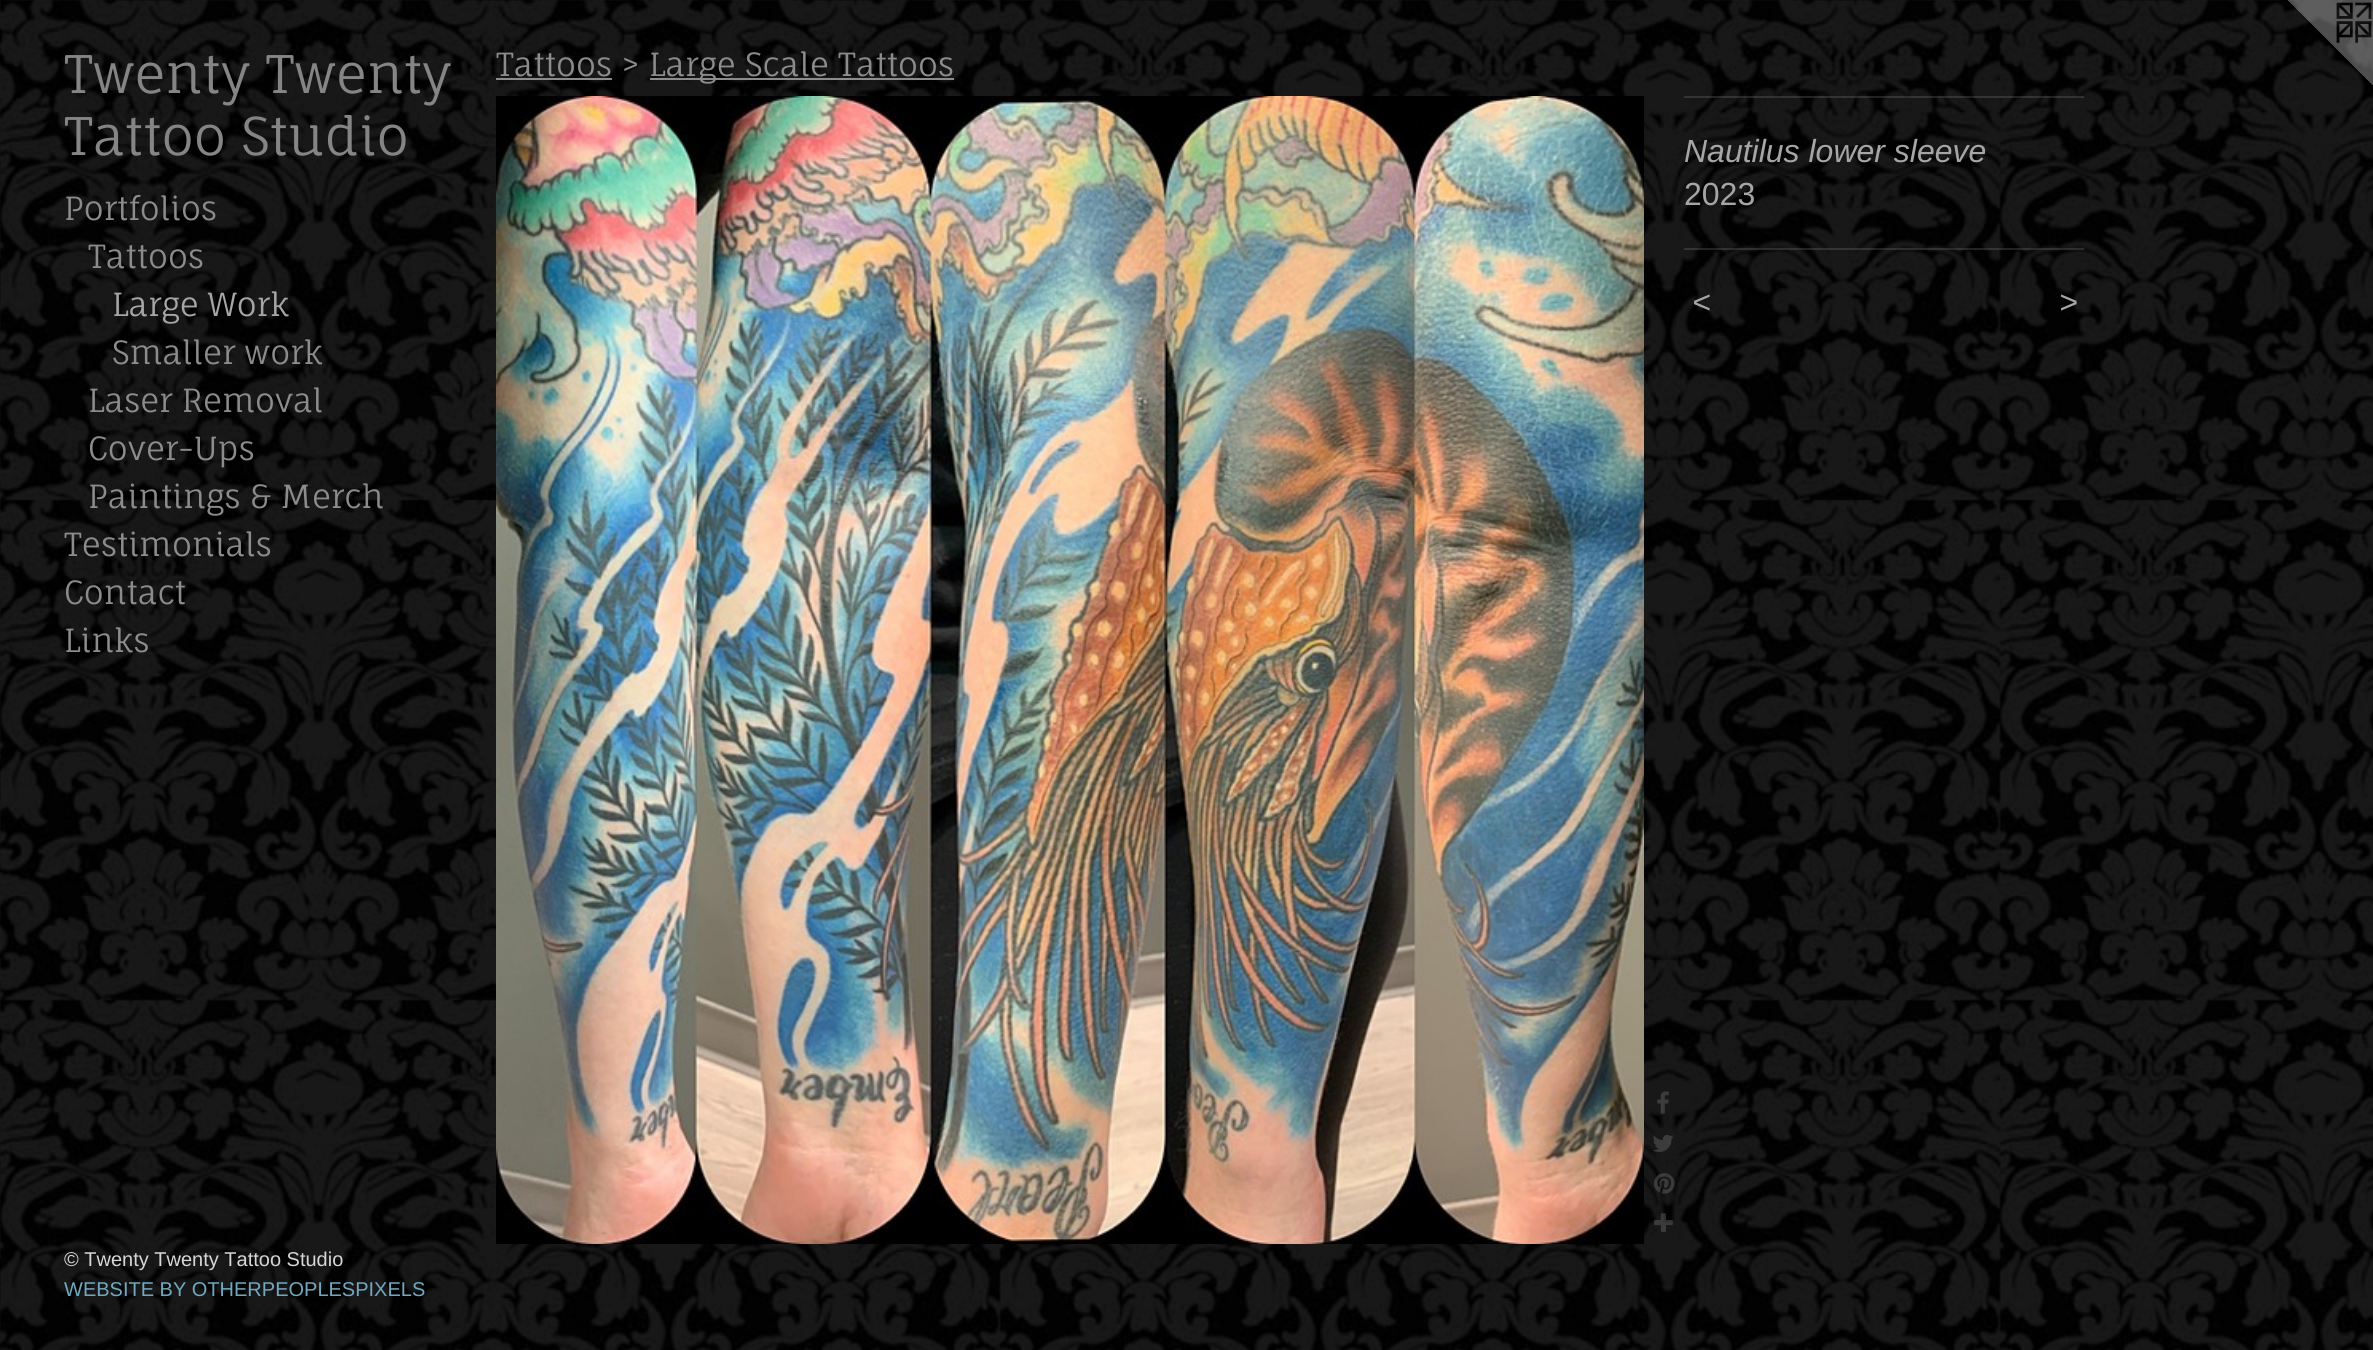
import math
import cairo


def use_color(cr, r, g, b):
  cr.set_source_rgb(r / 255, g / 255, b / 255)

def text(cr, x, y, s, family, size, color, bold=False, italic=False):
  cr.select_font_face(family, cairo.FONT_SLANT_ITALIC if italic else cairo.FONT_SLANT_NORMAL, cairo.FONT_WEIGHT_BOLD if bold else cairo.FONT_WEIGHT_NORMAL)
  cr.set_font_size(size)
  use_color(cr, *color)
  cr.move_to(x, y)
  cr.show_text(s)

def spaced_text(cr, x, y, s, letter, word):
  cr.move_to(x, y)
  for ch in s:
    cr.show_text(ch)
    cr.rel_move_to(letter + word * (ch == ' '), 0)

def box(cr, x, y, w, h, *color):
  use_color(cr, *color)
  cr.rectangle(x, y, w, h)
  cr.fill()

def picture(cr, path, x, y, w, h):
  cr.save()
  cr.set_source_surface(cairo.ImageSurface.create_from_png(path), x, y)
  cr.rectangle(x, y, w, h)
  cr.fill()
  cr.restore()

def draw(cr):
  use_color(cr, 255, 255, 255)
  cr.paint()
  picture(cr, "img_01.png", 0, 0, 2373, 1350)
  box(cr, 496, 78, 116, 2, 140, 140, 140)
  box(cr, 650, 78, 304, 2, 140, 140, 140)
  picture(cr, "img_02.png", 496, 96, 1148, 1148)
  picture(cr, "img_03.png", 1657, 1091, 12, 23)
  picture(cr, "img_04.png", 1653, 1135, 21, 17)
  picture(cr, "img_05.png", 1654, 1173, 21, 21)
  picture(cr, "img_06.png", 1654, 1213, 19, 19)
  cr.set_source_rgba(0.659, 0.659, 0.659, 0.2)
  cr.rectangle(1684, 96, 400, 2)
  cr.fill()
  cr.rectangle(1684, 248, 400, 2)
  cr.fill()
  picture(cr, "img_07.png", 2288, 0, 85, 86)
  text(cr, 64, 93, "Twenty Twenty", "Fauna One", 52, (133, 133, 133))
  text(cr, 64, 155, "Tattoo Studio", "Fauna One", 52, (133, 133, 133))
  text(cr, 64, 220, "Portfolios", "Fauna One", 32, (140, 140, 140))
  text(cr, 88, 268, "Tattoos", "Fauna One", 32, (140, 140, 140))
  text(cr, 112, 316, "Large Work", "Fauna One", 32, (166, 166, 166))
  text(cr, 112, 364, "Smaller work", "Fauna One", 32, (140, 140, 140))
  text(cr, 88, 412, "Laser Removal", "Fauna One", 32, (140, 140, 140))
  text(cr, 88, 460, "Cover-Ups", "Fauna One", 32, (140, 140, 140))
  text(cr, 88, 508, "Paintings & Merch", "Fauna One", 32, (140, 140, 140))
  text(cr, 64, 556, "Testimonials", "Fauna One", 32, (140, 140, 140))
  text(cr, 64, 604, "Contact", "Fauna One", 32, (140, 140, 140))
  text(cr, 64, 652, "Links", "Fauna One", 32, (140, 140, 140))
  text(cr, 64, 1266, "© Twenty Twenty Tattoo Studio", "Liberation Sans", 20, (214, 214, 214))
  text(cr, 64, 1296, "WEBSITE BY OTHERPEOPLESPIXELS", "Liberation Sans", 20, (112, 168, 192))
  text(cr, 496, 76, "Tattoos >", "Fauna One", 32, (140, 140, 140))
  text(cr, 649, 76, "Large Scale Tattoos", "Fauna One", 32, (140, 140, 140))
  text(cr, 1684, 162, "Nautilus lower sleeve", "Liberation Sans", 32, (166, 166, 166), italic=True)
  text(cr, 1684, 205, "2023", "Liberation Sans", 32, (166, 166, 166))
  cr.select_font_face("Liberation Sans", cairo.FONT_SLANT_ITALIC)
  spaced_text(cr, 1692, 313, "<", 2, 0)
  spaced_text(cr, 2059, 313, ">", 2, 0)


surface = cairo.ImageSurface(cairo.FORMAT_RGB24, 2373, 1350)
cr = cairo.Context(surface)
options = cairo.FontOptions()
options.set_hint_metrics(cairo.HINT_METRICS_OFF)
options.set_hint_style(cairo.HINT_STYLE_NONE)
cr.set_font_options(options)
cr.set_miter_limit(4)
draw(cr)
surface.write_to_png("out.png")
